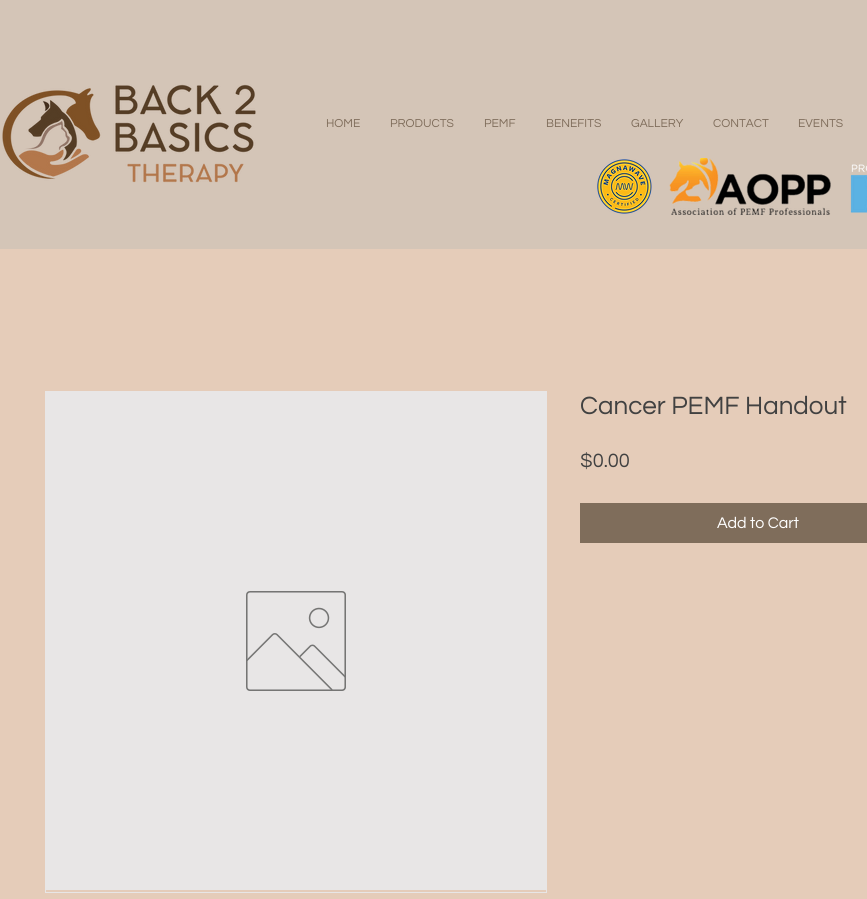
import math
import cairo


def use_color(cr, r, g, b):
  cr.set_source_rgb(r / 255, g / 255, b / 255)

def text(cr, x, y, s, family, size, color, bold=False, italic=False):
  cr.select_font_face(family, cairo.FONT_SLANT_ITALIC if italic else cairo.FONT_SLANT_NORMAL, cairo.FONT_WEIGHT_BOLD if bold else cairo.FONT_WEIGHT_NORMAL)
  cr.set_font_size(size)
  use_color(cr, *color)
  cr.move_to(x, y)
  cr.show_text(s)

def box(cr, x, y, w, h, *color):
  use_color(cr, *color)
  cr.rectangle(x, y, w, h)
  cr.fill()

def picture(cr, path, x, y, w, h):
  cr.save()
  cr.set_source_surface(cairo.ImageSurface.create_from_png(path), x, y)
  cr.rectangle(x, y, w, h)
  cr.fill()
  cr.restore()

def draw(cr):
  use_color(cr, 229, 204, 185)
  cr.paint()
  box(cr, 0, 0, 867, 249, 212, 197, 183)
  picture(cr, "img_01.png", 2, 84, 254, 99)
  picture(cr, "img_02.png", 597, 159, 55, 55)
  picture(cr, "img_03.png", 669, 158, 162, 57)
  picture(cr, "img_04.png", 850, 164, 17, 49)
  cr.rectangle(45.5, 391.5, 501, 501)
  use_color(cr, 232, 230, 230)
  cr.set_line_width(1)
  cr.stroke()
  box(cr, 46, 392, 500, 498, 232, 230, 230)
  picture(cr, "img_05.png", 246, 591, 100, 100)
  box(cr, 580, 503, 287, 40, 127, 109, 91)
  text(cr, 326, 127, "HOME", "Questrial", 12, (127, 109, 91))
  text(cr, 390, 127, "PRODUCTS", "Questrial", 12, (127, 109, 91))
  text(cr, 484, 127, "PEMF", "Questrial", 12, (127, 109, 91))
  text(cr, 546, 127, "BENEFITS", "Questrial", 12, (127, 109, 91))
  text(cr, 631, 127, "GALLERY", "Questrial", 12, (127, 109, 91))
  text(cr, 713, 127, "CONTACT", "Questrial", 12, (127, 109, 91))
  text(cr, 798, 127, "EVENTS", "Questrial", 12, (127, 109, 91))
  text(cr, 580, 414, "Cancer PEMF Handout", "Questrial", 26, (65, 65, 65))
  text(cr, 580, 467, "$0.00", "Questrial", 20, (65, 65, 65))
  text(cr, 717, 528, "Add to Cart", "Questrial", 16, (255, 255, 255))


surface = cairo.ImageSurface(cairo.FORMAT_RGB24, 867, 899)
cr = cairo.Context(surface)
options = cairo.FontOptions()
options.set_hint_metrics(cairo.HINT_METRICS_OFF)
options.set_hint_style(cairo.HINT_STYLE_NONE)
cr.set_font_options(options)
cr.set_miter_limit(4)
draw(cr)
surface.write_to_png("out.png")
